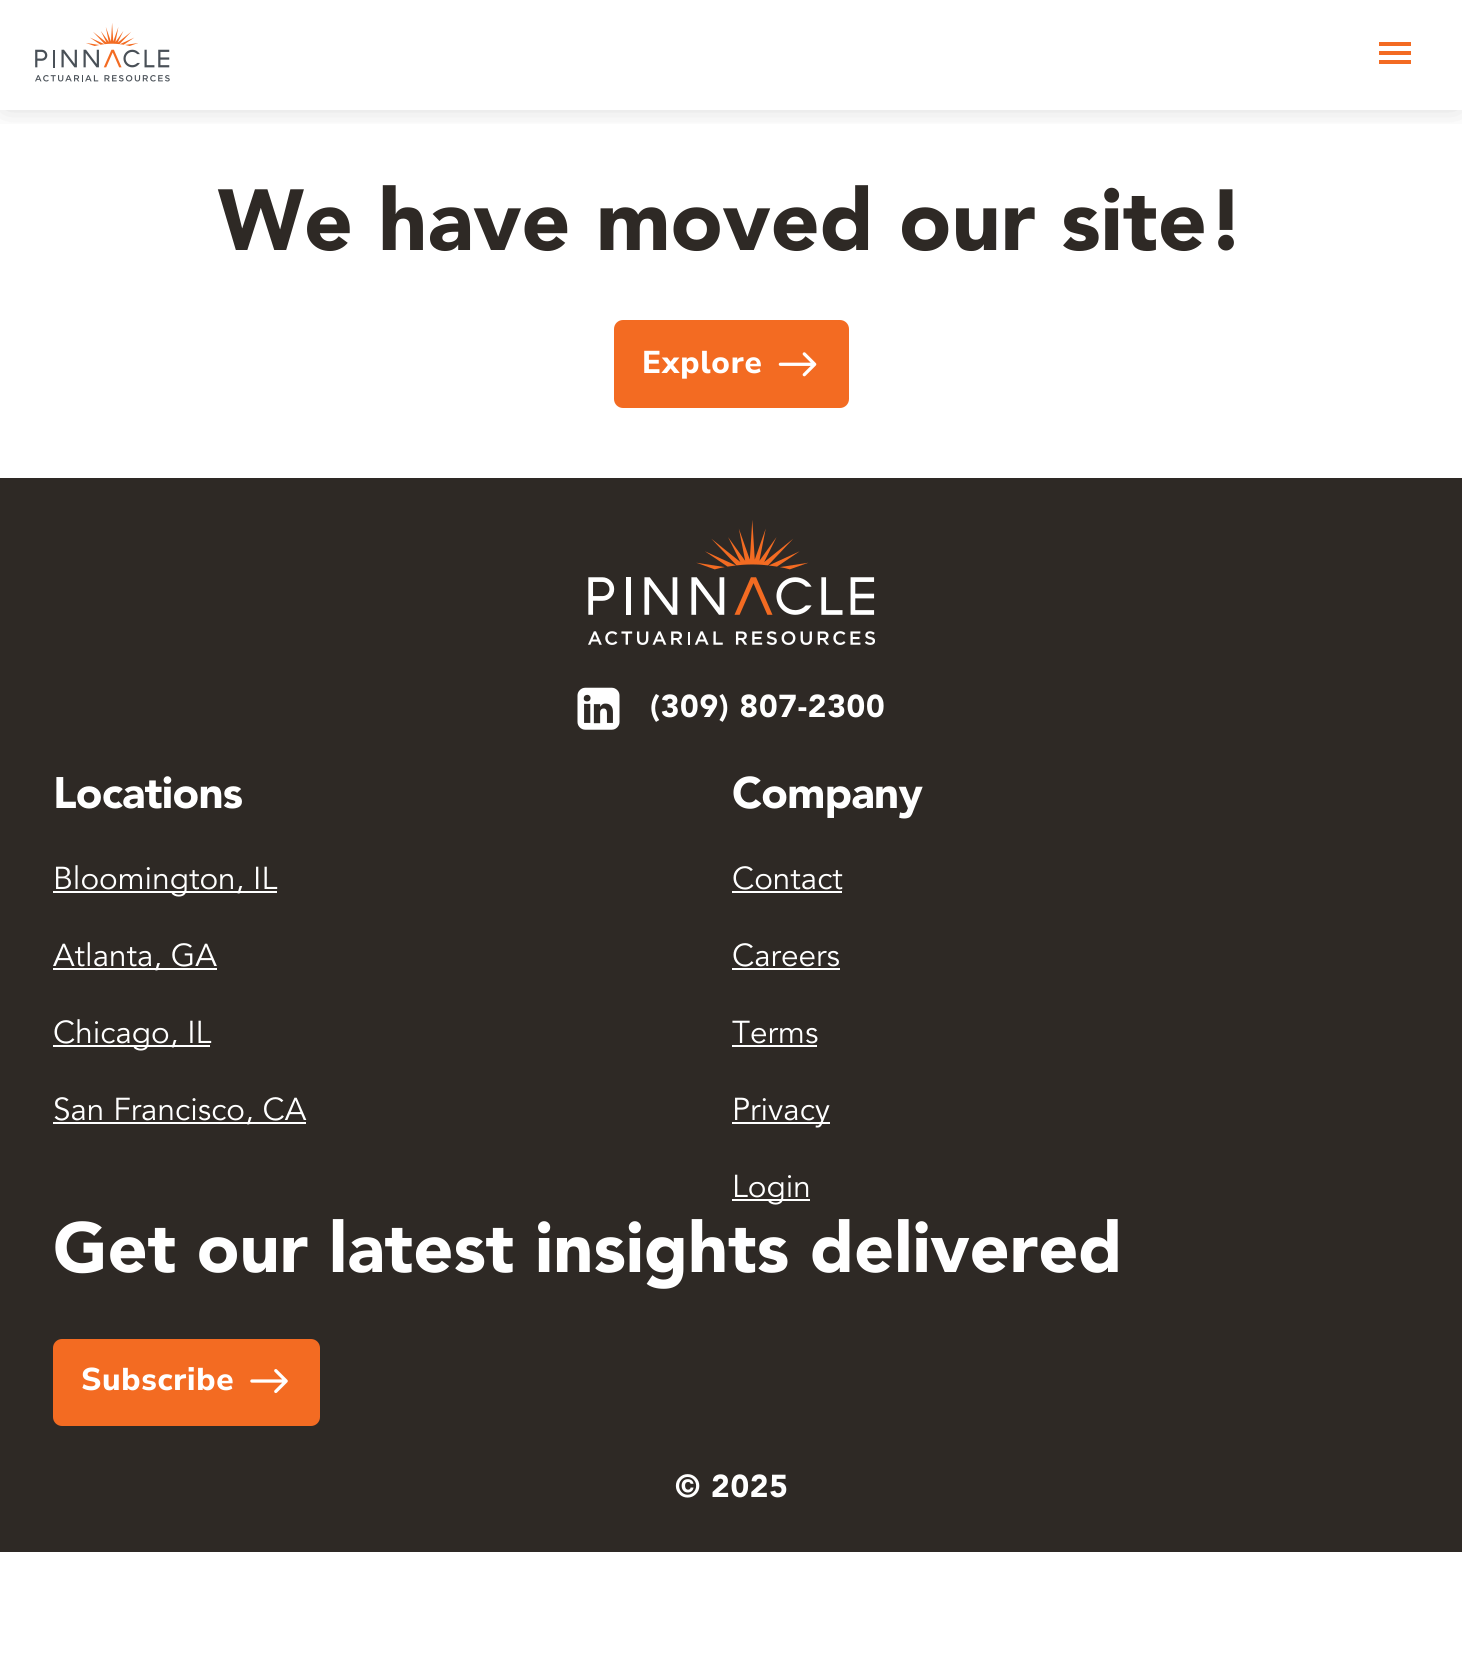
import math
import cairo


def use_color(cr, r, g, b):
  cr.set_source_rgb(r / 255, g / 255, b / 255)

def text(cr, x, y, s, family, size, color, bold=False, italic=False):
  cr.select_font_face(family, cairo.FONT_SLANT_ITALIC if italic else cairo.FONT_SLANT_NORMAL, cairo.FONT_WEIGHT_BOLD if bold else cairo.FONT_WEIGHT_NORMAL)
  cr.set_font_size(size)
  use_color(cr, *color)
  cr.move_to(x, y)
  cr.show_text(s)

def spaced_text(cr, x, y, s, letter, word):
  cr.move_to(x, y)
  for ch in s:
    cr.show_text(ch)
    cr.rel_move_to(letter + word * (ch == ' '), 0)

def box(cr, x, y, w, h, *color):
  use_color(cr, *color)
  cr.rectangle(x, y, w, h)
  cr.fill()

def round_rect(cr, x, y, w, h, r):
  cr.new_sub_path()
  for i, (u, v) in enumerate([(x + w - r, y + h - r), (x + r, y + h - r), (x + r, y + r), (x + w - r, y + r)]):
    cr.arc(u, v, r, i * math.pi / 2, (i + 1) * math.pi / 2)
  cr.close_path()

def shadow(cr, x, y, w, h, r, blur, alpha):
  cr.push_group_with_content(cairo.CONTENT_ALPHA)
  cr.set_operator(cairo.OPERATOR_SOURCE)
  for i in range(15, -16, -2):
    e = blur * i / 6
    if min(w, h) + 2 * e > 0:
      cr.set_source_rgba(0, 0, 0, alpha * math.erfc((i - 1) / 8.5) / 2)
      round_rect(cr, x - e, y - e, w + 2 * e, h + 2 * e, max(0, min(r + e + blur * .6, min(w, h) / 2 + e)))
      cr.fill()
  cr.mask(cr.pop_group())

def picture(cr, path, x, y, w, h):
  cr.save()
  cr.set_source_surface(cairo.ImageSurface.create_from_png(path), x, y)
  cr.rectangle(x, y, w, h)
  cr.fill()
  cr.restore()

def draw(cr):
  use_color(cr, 255, 255, 255)
  cr.paint()
  cr.save()
  cr.rectangle(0, 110, 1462, 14)
  cr.clip()
  use_color(cr, 0, 0, 0)
  shadow(cr, 5, 5, 1453, 100, 0, 15, 0.2)
  cr.restore()
  picture(cr, "img_01.png", 35, 23, 135, 59)
  box(cr, 1379, 42, 32, 4, 243, 107, 34)
  box(cr, 1379, 51, 32, 4, 243, 107, 34)
  box(cr, 1379, 60, 32, 4, 243, 107, 34)
  round_rect(cr, 615, 321, 233, 86, 8)
  cr.fill_preserve()
  cr.stroke()
  picture(cr, "img_02.png", 778, 352, 39, 25)
  box(cr, 0, 478, 1462, 1074, 46, 41, 37)
  picture(cr, "img_03.png", 588, 520, 287, 125)
  picture(cr, "img_04.png", 577, 687, 43, 43)
  box(cr, 53, 891, 224, 2, 255, 255, 255)
  box(cr, 53, 968, 164, 2, 255, 255, 255)
  box(cr, 53, 1045, 157, 2, 255, 255, 255)
  box(cr, 53, 1122, 253, 2, 255, 255, 255)
  box(cr, 732, 891, 110, 2, 255, 255, 255)
  box(cr, 732, 968, 108, 2, 255, 255, 255)
  box(cr, 732, 1045, 85, 2, 255, 255, 255)
  box(cr, 732, 1122, 98, 2, 255, 255, 255)
  box(cr, 732, 1199, 78, 2, 255, 255, 255)
  use_color(cr, 243, 107, 34)
  round_rect(cr, 54, 1340, 265, 85, 8)
  cr.fill_preserve()
  cr.stroke()
  picture(cr, "img_05.png", 250, 1369, 38, 25)
  text(cr, 218, 250, "We have moved our site!", "Avenir", 85.75, (46, 41, 37))
  cr.select_font_face("Nunito Sans ExtraLight")
  cr.set_font_size(31.5)
  use_color(cr, 255, 255, 255)
  spaced_text(cr, 642, 373, "Explore", 0.75, 0)
  cr.select_font_face("Avenir")
  spaced_text(cr, 650, 717, "(309) 807-2300", 0.75, 0)
  cr.set_font_size(43.75)
  spaced_text(cr, 53, 808, "Locations", -0.75, 0)
  text(cr, 53, 889, "Bloomington, IL", "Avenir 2", 31.5, (255, 255, 255))
  text(cr, 53, 966, "Atlanta, GA", "Avenir 2", 31.5, (255, 255, 255))
  text(cr, 53, 1043, "Chicago, IL", "Avenir 2", 31.5, (255, 255, 255))
  text(cr, 53, 1120, "San Francisco, CA", "Avenir 2", 31.5, (255, 255, 255))
  cr.select_font_face("Avenir")
  cr.set_font_size(43.75)
  spaced_text(cr, 732, 808, "Company", -0.75, 0)
  text(cr, 732, 889, "Contact", "Avenir 2", 31.5, (255, 255, 255))
  text(cr, 732, 966, "Careers", "Avenir 2", 31.5, (255, 255, 255))
  text(cr, 732, 1043, "Terms", "Avenir 2", 31.5, (255, 255, 255))
  text(cr, 732, 1120, "Privacy", "Avenir 2", 31.5, (255, 255, 255))
  text(cr, 732, 1197, "Login", "Avenir 2", 31.5, (255, 255, 255))
  text(cr, 53, 1272, "Get our latest insights delivered", "Avenir", 70, (255, 255, 255))
  cr.select_font_face("Nunito Sans ExtraLight")
  cr.set_font_size(31.5)
  spaced_text(cr, 81, 1390, "Subscribe", 0.75, 0)
  cr.select_font_face("Avenir")
  spaced_text(cr, 675, 1497, "© 2025", 0.75, 0)


surface = cairo.ImageSurface(cairo.FORMAT_RGB24, 1462, 1677)
cr = cairo.Context(surface)
options = cairo.FontOptions()
options.set_hint_metrics(cairo.HINT_METRICS_OFF)
options.set_hint_style(cairo.HINT_STYLE_NONE)
cr.set_font_options(options)
cr.set_miter_limit(4)
draw(cr)
surface.write_to_png("out.png")
